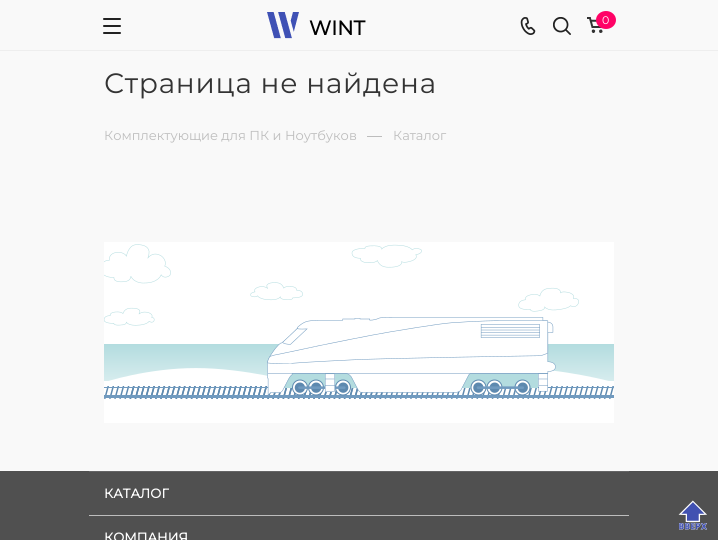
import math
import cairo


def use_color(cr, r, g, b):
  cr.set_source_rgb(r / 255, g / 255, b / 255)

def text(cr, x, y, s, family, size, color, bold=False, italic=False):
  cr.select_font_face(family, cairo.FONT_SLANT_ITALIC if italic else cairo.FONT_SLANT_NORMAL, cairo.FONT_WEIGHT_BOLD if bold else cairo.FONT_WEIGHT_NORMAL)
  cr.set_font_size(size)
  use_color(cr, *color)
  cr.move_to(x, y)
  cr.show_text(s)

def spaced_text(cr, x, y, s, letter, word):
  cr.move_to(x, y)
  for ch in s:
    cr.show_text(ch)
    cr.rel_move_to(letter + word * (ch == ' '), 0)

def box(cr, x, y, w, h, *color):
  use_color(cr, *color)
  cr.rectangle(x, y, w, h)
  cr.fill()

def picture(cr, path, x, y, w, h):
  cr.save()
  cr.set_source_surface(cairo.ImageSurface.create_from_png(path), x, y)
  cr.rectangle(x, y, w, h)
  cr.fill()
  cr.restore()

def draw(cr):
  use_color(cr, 249, 249, 249)
  cr.paint()
  picture(cr, "img_01.png", 103, 18, 18, 16)
  picture(cr, "img_02.png", 267, 12, 32, 27)
  picture(cr, "img_03.png", 520, 17, 16, 18)
  picture(cr, "img_04.png", 553, 17, 18, 18)
  picture(cr, "img_05.png", 587, 17, 16, 16)
  use_color(cr, 255, 2, 102)
  cr.new_path()
  cr.move_to(606, 11)
  cr.curve_to(611.5, 11, 616, 15, 616, 20)
  cr.curve_to(616, 25, 611.5, 29, 606, 29)
  cr.curve_to(600.5, 29, 596, 25, 596, 20)
  cr.curve_to(596, 15, 600.5, 11, 606, 11)
  cr.close_path()
  cr.fill()
  box(cr, 0, 50, 718, 1, 238, 238, 238)
  box(cr, 367, 136, 15, 1, 189, 189, 189)
  picture(cr, "img_06.png", 104, 242, 510, 181)
  box(cr, 0, 471, 718, 69, 80, 80, 80)
  box(cr, 89, 471, 540, 1, 100, 100, 101)
  box(cr, 89, 515, 540, 1, 189, 189, 189)
  picture(cr, "img_07.png", 678, 500, 29, 30)
  text(cr, 309, 35, "WINT", "Montserrat", 20, (0, 0, 0), bold=True)
  text(cr, 602, 24, "0", "Montserrat Thin", 11, (255, 255, 255))
  cr.set_font_size(28)
  use_color(cr, 51, 51, 51)
  spaced_text(cr, 104, 93, "Страница не найдена", 0.75, 0)
  text(cr, 104, 140, "Комплектующие для ПК и Ноутбуков", "Montserrat Thin", 13, (189, 189, 189))
  text(cr, 393, 140, "Каталог", "Montserrat Thin", 13, (189, 189, 189))
  text(cr, 104, 498, "КАТАЛОГ", "Montserrat", 13, (255, 255, 255), bold=True)
  text(cr, 104, 542, "КОМПАНИЯ", "Montserrat", 13, (255, 255, 255), bold=True)


surface = cairo.ImageSurface(cairo.FORMAT_RGB24, 718, 540)
cr = cairo.Context(surface)
options = cairo.FontOptions()
options.set_hint_metrics(cairo.HINT_METRICS_OFF)
options.set_hint_style(cairo.HINT_STYLE_NONE)
cr.set_font_options(options)
cr.set_miter_limit(4)
draw(cr)
surface.write_to_png("out.png")
